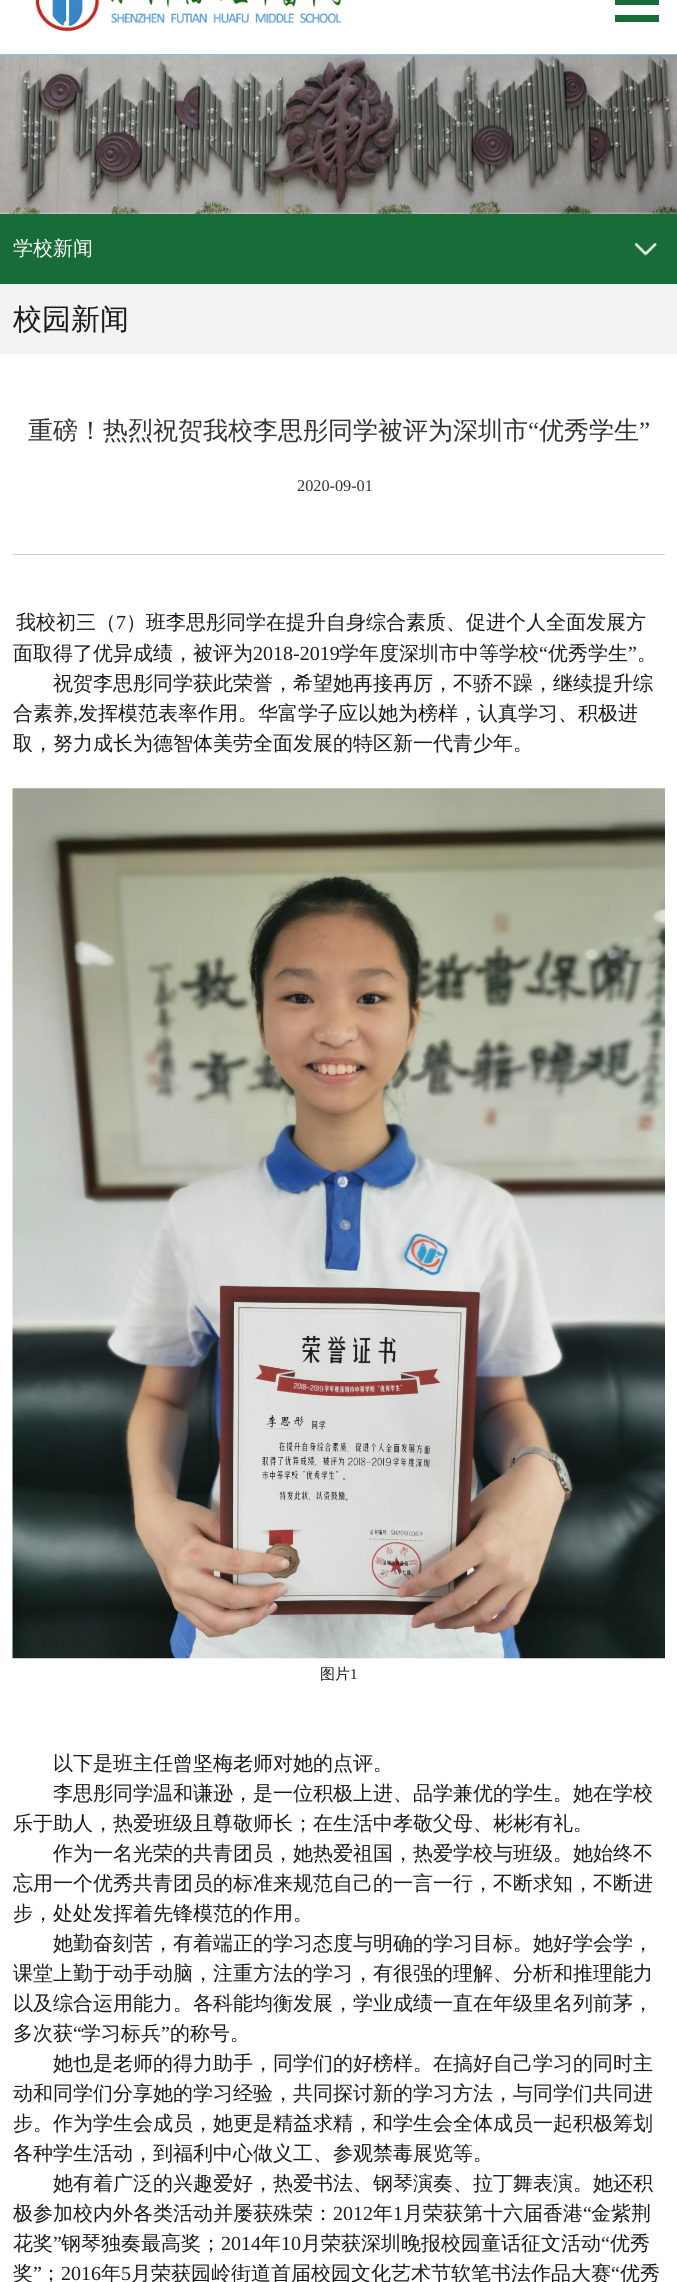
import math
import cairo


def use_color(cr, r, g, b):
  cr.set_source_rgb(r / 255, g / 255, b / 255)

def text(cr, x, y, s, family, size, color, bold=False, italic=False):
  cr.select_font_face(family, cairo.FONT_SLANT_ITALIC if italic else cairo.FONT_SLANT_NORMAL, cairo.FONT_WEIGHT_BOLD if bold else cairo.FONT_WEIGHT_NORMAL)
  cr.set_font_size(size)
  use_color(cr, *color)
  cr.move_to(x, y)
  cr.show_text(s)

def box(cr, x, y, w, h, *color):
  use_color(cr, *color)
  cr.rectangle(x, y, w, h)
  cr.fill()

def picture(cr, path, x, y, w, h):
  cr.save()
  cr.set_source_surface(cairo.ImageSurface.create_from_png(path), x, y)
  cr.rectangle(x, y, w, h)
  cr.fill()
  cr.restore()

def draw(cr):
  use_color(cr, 255, 255, 255)
  cr.paint()
  box(cr, 0, 54, 677, 1, 123, 199, 230)
  picture(cr, "img_01.png", 35, 0, 307, 32)
  box(cr, 615, 0, 44, 22, 24, 108, 55)
  box(cr, 615, 5, 44, 10, 255, 255, 255)
  picture(cr, "img_02.png", 0, 55, 677, 159)
  box(cr, 0, 214, 677, 70, 24, 108, 55)
  picture(cr, "img_03.png", 634, 243, 23, 13)
  box(cr, 0, 284, 677, 70, 242, 242, 242)
  box(cr, 13, 554, 652, 1, 204, 204, 204)
  picture(cr, "img_04.png", 12, 788, 653, 871)
  text(cr, 13, 255, "学校新闻", "WenQuanYi Zen Hei Medium", 20, (255, 255, 255))
  text(cr, 13, 329, "校园新闻", "WenQuanYi Zen Hei Medium", 29, (26, 26, 26))
  text(cr, 28, 439, "重磅！热烈祝贺我校李思彤同学被评为深圳市", "WenQuanYi Zen Hei Medium", 25, (51, 51, 51))
  text(cr, 528, 439, "“", "Liberation Serif", 25, (51, 51, 51))
  text(cr, 539, 439, "优秀学生", "WenQuanYi Zen Hei Medium", 25, (51, 51, 51))
  text(cr, 639, 439, "”", "Liberation Serif", 25, (51, 51, 51))
  text(cr, 297, 491, "2020-09-01", "Liberation Serif", 16.25, (51, 51, 51))
  text(cr, 16, 629, "我校初三（", "WenQuanYi Zen Hei Medium", 20, (26, 26, 26))
  text(cr, 116, 629, "7", "Liberation Serif", 20, (26, 26, 26))
  text(cr, 126, 629, "）班李思彤同学在提升自身综合素质、促进个人全面发展方", "WenQuanYi Zen Hei Medium", 20, (26, 26, 26))
  text(cr, 13, 660, "面取得了优异成绩，被评为", "WenQuanYi Zen Hei Medium", 20, (26, 26, 26))
  text(cr, 253, 660, "2018-2019", "Liberation Serif", 20, (26, 26, 26))
  text(cr, 339, 660, "学年度深圳市中等学校", "WenQuanYi Zen Hei Medium", 20, (26, 26, 26))
  text(cr, 539, 660, "“", "Liberation Serif", 20, (26, 26, 26))
  text(cr, 548, 660, "优秀学生", "WenQuanYi Zen Hei Medium", 20, (26, 26, 26))
  text(cr, 628, 660, "”", "Liberation Serif", 20, (26, 26, 26))
  text(cr, 637, 660, "。", "WenQuanYi Zen Hei Medium", 20, (26, 26, 26))
  text(cr, 53, 690, "祝贺李思彤同学获此荣誉，希望她再接再厉，不骄不躁，继续提升综", "WenQuanYi Zen Hei Medium", 20, (26, 26, 26))
  text(cr, 13, 720, "合素养", "WenQuanYi Zen Hei Medium", 20, (26, 26, 26))
  text(cr, 73, 720, ",", "Liberation Serif", 20, (26, 26, 26))
  text(cr, 78, 720, "发挥模范表率作用。华富学子应以她为榜样，认真学习、积极进", "WenQuanYi Zen Hei Medium", 20, (26, 26, 26))
  text(cr, 13, 750, "取，努力成长为德智体美劳全面发展的特区新一代青少年。", "WenQuanYi Zen Hei Medium", 20, (26, 26, 26))
  text(cr, 320, 1679, "图片", "WenQuanYi Zen Hei Medium", 15, (26, 26, 26))
  text(cr, 350, 1679, "1", "Liberation Serif", 15, (26, 26, 26))
  text(cr, 53, 1770, "以下是班主任曾坚梅老师对她的点评。", "WenQuanYi Zen Hei Medium", 20, (26, 26, 26))
  text(cr, 53, 1800, "李思彤同学温和谦逊，是一位积极上进、品学兼优的学生。她在学校", "WenQuanYi Zen Hei Medium", 20, (26, 26, 26))
  text(cr, 13, 1830, "乐于助人，热爱班级且尊敬师长；在生活中孝敬父母、彬彬有礼。", "WenQuanYi Zen Hei Medium", 20, (26, 26, 26))
  text(cr, 53, 1860, "作为一名光荣的共青团员，她热爱祖国，热爱学校与班级。她始终不", "WenQuanYi Zen Hei Medium", 20, (26, 26, 26))
  text(cr, 13, 1890, "忘用一个优秀共青团员的标准来规范自己的一言一行，不断求知，不断进", "WenQuanYi Zen Hei Medium", 20, (26, 26, 26))
  text(cr, 13, 1920, "步，处处发挥着先锋模范的作用。", "WenQuanYi Zen Hei Medium", 20, (26, 26, 26))
  text(cr, 53, 1950, "她勤奋刻苦，有着端正的学习态度与明确的学习目标。她好学会学，", "WenQuanYi Zen Hei Medium", 20, (26, 26, 26))
  text(cr, 13, 1980, "课堂上勤于动手动脑，注重方法的学习，有很强的理解、分析和推理能力", "WenQuanYi Zen Hei Medium", 20, (26, 26, 26))
  text(cr, 13, 2010, "以及综合运用能力。各科能均衡发展，学业成绩一直在年级里名列前茅，", "WenQuanYi Zen Hei Medium", 20, (26, 26, 26))
  text(cr, 13, 2040, "多次获", "WenQuanYi Zen Hei Medium", 20, (26, 26, 26))
  text(cr, 73, 2040, "“", "Liberation Serif", 20, (26, 26, 26))
  text(cr, 81, 2040, "学习标兵", "WenQuanYi Zen Hei Medium", 20, (26, 26, 26))
  text(cr, 161, 2040, "”", "Liberation Serif", 20, (26, 26, 26))
  text(cr, 170, 2040, "的称号。", "WenQuanYi Zen Hei Medium", 20, (26, 26, 26))
  text(cr, 53, 2070, "她也是老师的得力助手，同学们的好榜样。在搞好自己学习的同时主", "WenQuanYi Zen Hei Medium", 20, (26, 26, 26))
  text(cr, 13, 2100, "动和同学们分享她的学习经验，共同探讨新的学习方法，与同学们共同进", "WenQuanYi Zen Hei Medium", 20, (26, 26, 26))
  text(cr, 13, 2130, "步。作为学生会成员，她更是精益求精，和学生会全体成员一起积极筹划", "WenQuanYi Zen Hei Medium", 20, (26, 26, 26))
  text(cr, 13, 2160, "各种学生活动，到福利中心做义工、参观禁毒展览等。", "WenQuanYi Zen Hei Medium", 20, (26, 26, 26))
  text(cr, 53, 2190, "她有着广泛的兴趣爱好，热爱书法、钢琴演奏、拉丁舞表演。她还积", "WenQuanYi Zen Hei Medium", 20, (26, 26, 26))
  text(cr, 13, 2220, "极参加校内外各类活动并屡获殊荣：", "WenQuanYi Zen Hei Medium", 20, (26, 26, 26))
  text(cr, 333, 2220, "2012", "Liberation Serif", 20, (26, 26, 26))
  text(cr, 373, 2220, "年", "WenQuanYi Zen Hei Medium", 20, (26, 26, 26))
  text(cr, 393, 2220, "1", "Liberation Serif", 20, (26, 26, 26))
  text(cr, 403, 2220, "月荣获第十六届香港", "WenQuanYi Zen Hei Medium", 20, (26, 26, 26))
  text(cr, 583, 2220, "“", "Liberation Serif", 20, (26, 26, 26))
  text(cr, 591, 2220, "金紫荆", "WenQuanYi Zen Hei Medium", 20, (26, 26, 26))
  text(cr, 13, 2250, "花奖", "WenQuanYi Zen Hei Medium", 20, (26, 26, 26))
  text(cr, 53, 2250, "”", "Liberation Serif", 20, (26, 26, 26))
  text(cr, 61, 2250, "钢琴独奏最高奖；", "WenQuanYi Zen Hei Medium", 20, (26, 26, 26))
  text(cr, 221, 2250, "2014", "Liberation Serif", 20, (26, 26, 26))
  text(cr, 261, 2250, "年", "WenQuanYi Zen Hei Medium", 20, (26, 26, 26))
  text(cr, 281, 2250, "10", "Liberation Serif", 20, (26, 26, 26))
  text(cr, 301, 2250, "月荣获深圳晚报校园童话征文活动", "WenQuanYi Zen Hei Medium", 20, (26, 26, 26))
  text(cr, 601, 2250, "“", "Liberation Serif", 20, (26, 26, 26))
  text(cr, 610, 2250, "优秀", "WenQuanYi Zen Hei Medium", 20, (26, 26, 26))
  text(cr, 13, 2280, "奖", "WenQuanYi Zen Hei Medium", 20, (26, 26, 26))
  text(cr, 33, 2280, "”", "Liberation Serif", 20, (26, 26, 26))
  text(cr, 41, 2280, "；", "WenQuanYi Zen Hei Medium", 20, (26, 26, 26))
  text(cr, 61, 2280, "2016", "Liberation Serif", 20, (26, 26, 26))
  text(cr, 101, 2280, "年", "WenQuanYi Zen Hei Medium", 20, (26, 26, 26))
  text(cr, 121, 2280, "5", "Liberation Serif", 20, (26, 26, 26))
  text(cr, 131, 2280, "月荣获园岭街道首届校园文化艺术节软笔书法作品大赛", "WenQuanYi Zen Hei Medium", 20, (26, 26, 26))
  text(cr, 611, 2280, "“", "Liberation Serif", 20, (26, 26, 26))
  text(cr, 620, 2280, "优秀", "WenQuanYi Zen Hei Medium", 20, (26, 26, 26))


surface = cairo.ImageSurface(cairo.FORMAT_RGB24, 677, 2282)
cr = cairo.Context(surface)
options = cairo.FontOptions()
options.set_hint_metrics(cairo.HINT_METRICS_OFF)
options.set_hint_style(cairo.HINT_STYLE_NONE)
cr.set_font_options(options)
cr.set_miter_limit(4)
draw(cr)
surface.write_to_png("out.png")
